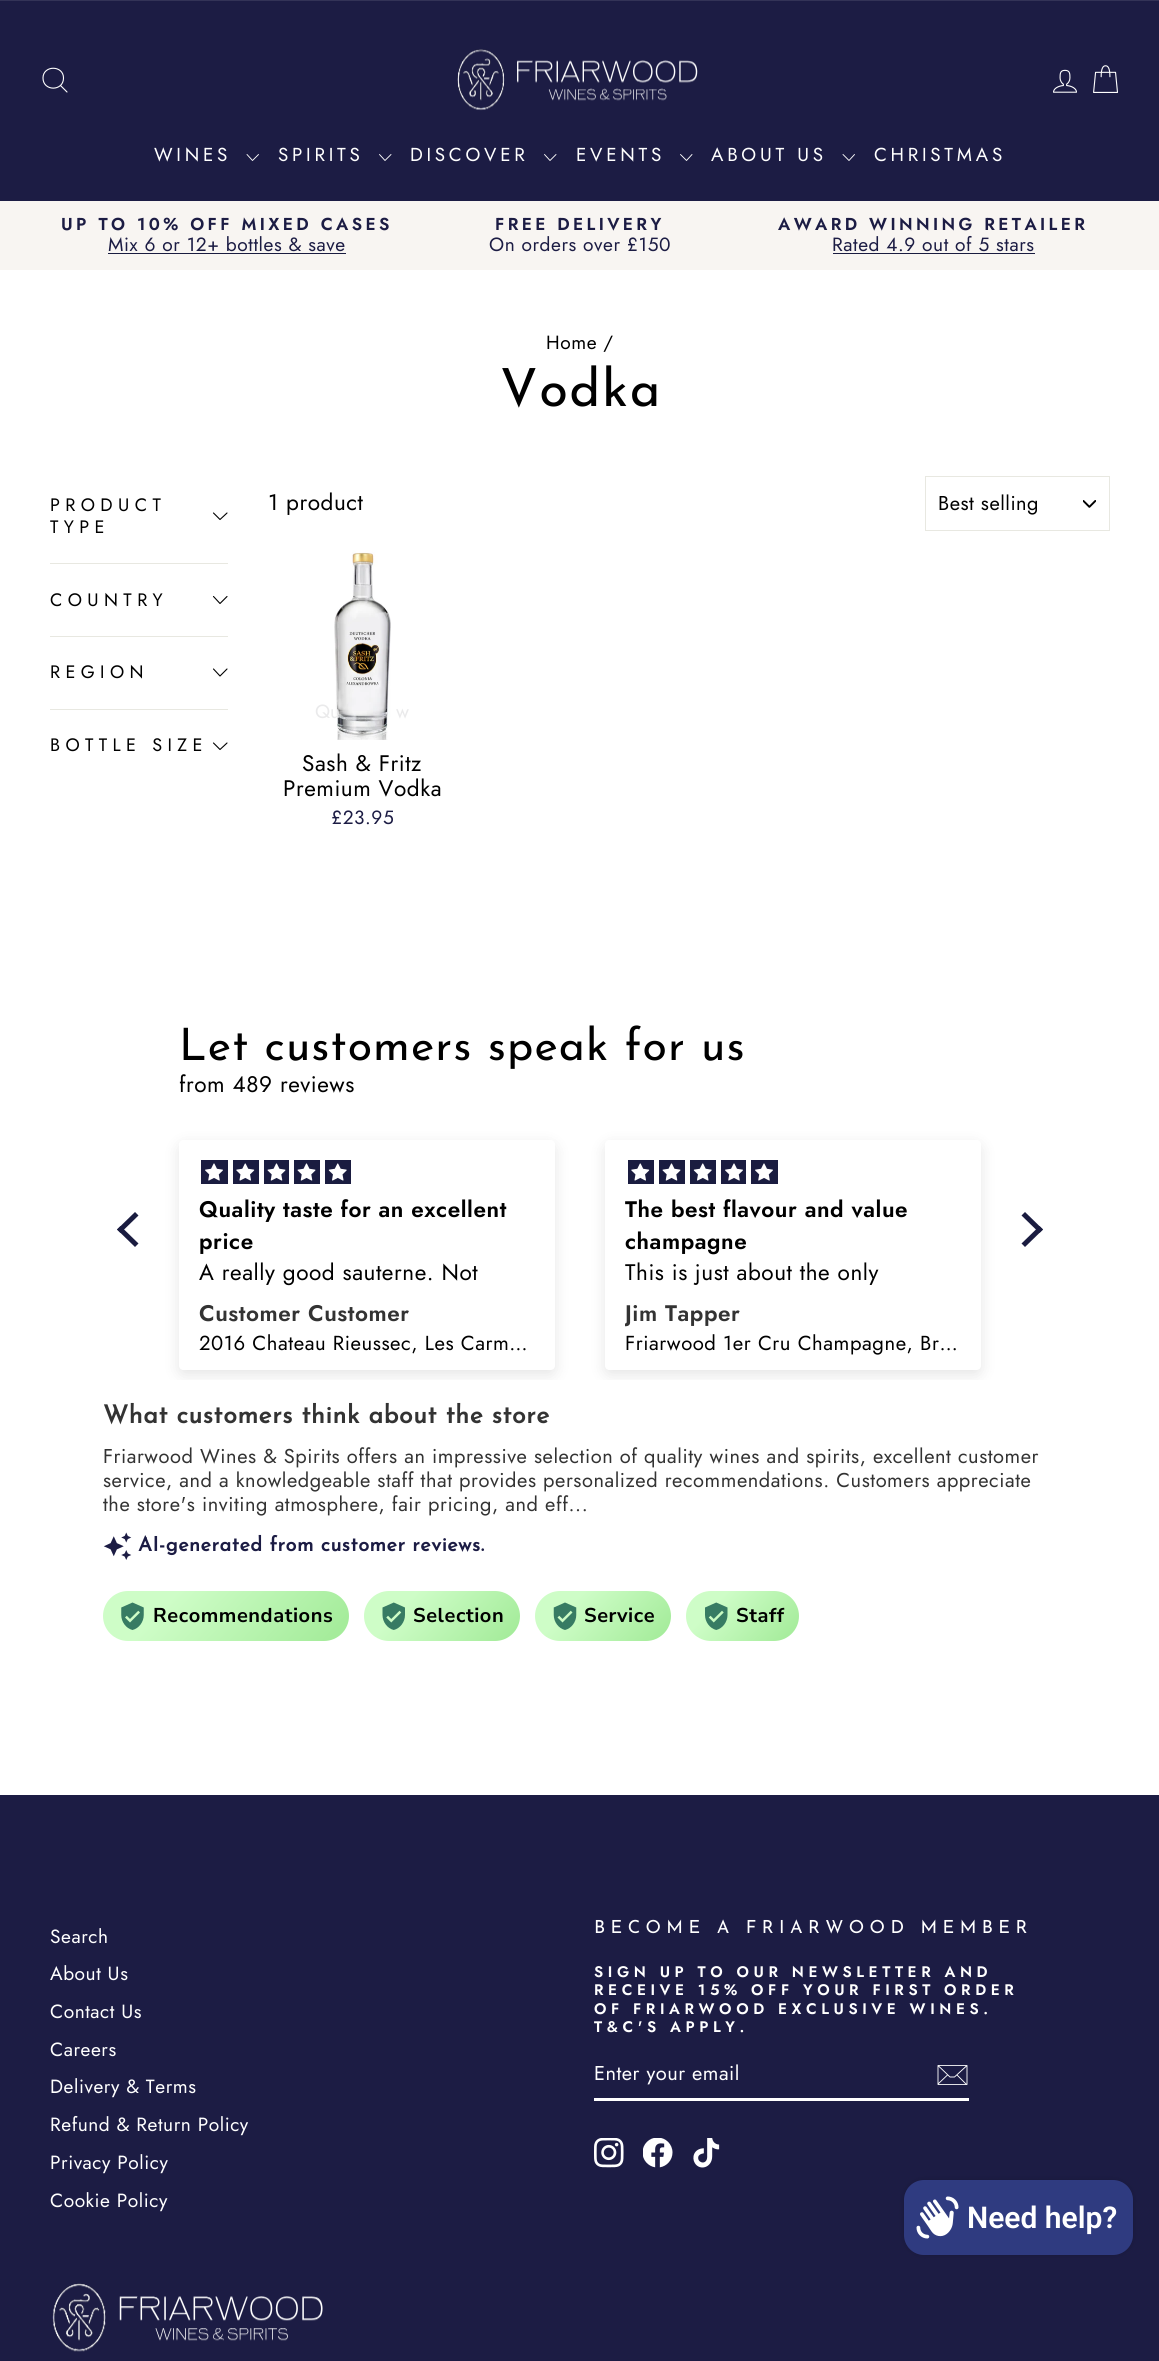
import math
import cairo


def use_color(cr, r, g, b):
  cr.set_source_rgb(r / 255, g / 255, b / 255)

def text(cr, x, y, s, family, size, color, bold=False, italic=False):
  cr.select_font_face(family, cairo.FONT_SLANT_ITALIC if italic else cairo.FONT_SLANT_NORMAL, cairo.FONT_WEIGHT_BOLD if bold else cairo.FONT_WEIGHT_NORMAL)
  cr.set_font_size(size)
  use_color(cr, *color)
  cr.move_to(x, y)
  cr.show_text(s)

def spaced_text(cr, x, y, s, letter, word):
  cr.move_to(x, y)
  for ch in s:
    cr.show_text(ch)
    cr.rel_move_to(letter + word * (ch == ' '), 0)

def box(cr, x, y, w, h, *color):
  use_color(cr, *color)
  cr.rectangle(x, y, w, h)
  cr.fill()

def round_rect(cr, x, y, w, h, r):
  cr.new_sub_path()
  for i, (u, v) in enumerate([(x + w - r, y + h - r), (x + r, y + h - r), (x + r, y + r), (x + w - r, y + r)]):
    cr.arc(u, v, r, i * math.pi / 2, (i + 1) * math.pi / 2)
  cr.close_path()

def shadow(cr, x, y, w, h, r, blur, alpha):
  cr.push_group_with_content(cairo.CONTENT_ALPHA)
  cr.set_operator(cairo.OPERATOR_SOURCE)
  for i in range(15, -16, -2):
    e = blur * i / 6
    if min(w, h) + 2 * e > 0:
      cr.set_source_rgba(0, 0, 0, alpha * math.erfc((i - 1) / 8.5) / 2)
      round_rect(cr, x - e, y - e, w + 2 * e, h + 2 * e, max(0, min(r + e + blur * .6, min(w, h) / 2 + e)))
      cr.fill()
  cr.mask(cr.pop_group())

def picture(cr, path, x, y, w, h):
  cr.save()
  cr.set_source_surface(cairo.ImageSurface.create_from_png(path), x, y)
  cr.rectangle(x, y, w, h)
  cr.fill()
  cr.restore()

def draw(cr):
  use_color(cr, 255, 255, 255)
  cr.paint()
  box(cr, 0, 1, 1159, 200, 28, 28, 68)
  box(cr, 0, 0, 1159, 1, 51, 51, 87)
  cr.new_path()
  cr.move_to(63.5, 78)
  cr.curve_to(63.5, 91.5, 43, 91.5, 43, 78)
  cr.curve_to(43, 65, 63.5, 65, 63.5, 78)
  cr.close_path()
  cr.move_to(67, 92)
  cr.line_to(60.5, 85.5)
  use_color(cr, 255, 255, 255)
  cr.set_line_width(1.1)
  cr.set_line_cap(cairo.LINE_CAP_ROUND)
  cr.set_line_join(cairo.LINE_JOIN_ROUND)
  cr.stroke()
  picture(cr, "img_01.png", 457, 49, 241, 62)
  picture(cr, "img_02.png", 1053, 69, 24, 24)
  picture(cr, "img_03.png", 1093, 65, 25, 28)
  cr.new_path()
  cr.move_to(247, 154.5)
  cr.line_to(252.5, 160.5)
  cr.line_to(258.5, 154.5)
  cr.set_line_width(0.9)
  cr.stroke()
  cr.new_path()
  cr.move_to(379.5, 154.5)
  cr.line_to(385, 160.5)
  cr.line_to(391, 154.5)
  cr.stroke()
  cr.new_path()
  cr.move_to(544.5, 154.5)
  cr.line_to(550, 160.5)
  cr.line_to(556, 154.5)
  cr.stroke()
  cr.new_path()
  cr.move_to(680.5, 154.5)
  cr.line_to(686.5, 160.5)
  cr.line_to(692, 154.5)
  cr.stroke()
  cr.new_path()
  cr.move_to(843, 154.5)
  cr.line_to(849, 160.5)
  cr.line_to(854.5, 154.5)
  cr.stroke()
  box(cr, 0, 201, 1159, 69, 248, 245, 242)
  box(cr, 108, 253, 238, 1, 26, 28, 64)
  box(cr, 833, 253, 202, 1, 26, 28, 64)
  cr.new_path()
  cr.move_to(213.5, 513)
  cr.line_to(220, 519.5)
  cr.line_to(227, 513)
  use_color(cr, 0, 0, 0)
  cr.set_line_width(1.1)
  cr.stroke()
  box(cr, 50, 563, 178, 1, 232, 232, 225)
  cr.new_path()
  cr.move_to(213.5, 596.5)
  cr.line_to(220, 603.5)
  cr.line_to(227, 596.5)
  use_color(cr, 0, 0, 0)
  cr.stroke()
  box(cr, 50, 636, 178, 1, 232, 232, 225)
  cr.new_path()
  cr.move_to(213.5, 669)
  cr.line_to(220, 676)
  cr.line_to(227, 669)
  use_color(cr, 0, 0, 0)
  cr.stroke()
  box(cr, 50, 709, 178, 1, 232, 232, 225)
  cr.new_path()
  cr.move_to(213.5, 743)
  cr.line_to(220, 749.5)
  cr.line_to(227, 743)
  use_color(cr, 0, 0, 0)
  cr.stroke()
  picture(cr, "img_04.png", 1083, 500, 13, 8)
  cr.rectangle(925.5, 476.5, 184, 54)
  use_color(cr, 232, 232, 225)
  cr.set_line_width(1)
  cr.set_line_cap(cairo.LINE_CAP_BUTT)
  cr.set_line_join(cairo.LINE_JOIN_MITER)
  cr.stroke()
  picture(cr, "img_05.png", 334, 550, 57, 190)
  cr.save()
  cr.rectangle(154, 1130, 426, 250)
  cr.clip()
  cr.set_fill_rule(cairo.FILL_RULE_EVEN_ODD)
  cr.new_path()
  cr.move_to(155, 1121)
  cr.line_to(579, 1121)
  cr.line_to(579, 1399)
  cr.line_to(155, 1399)
  cr.close_path()
  cr.move_to(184, 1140)
  cr.line_to(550, 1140)
  cr.curve_to(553, 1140, 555, 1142, 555, 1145)
  cr.line_to(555, 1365)
  cr.curve_to(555, 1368, 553, 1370, 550, 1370)
  cr.line_to(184, 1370)
  cr.curve_to(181, 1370, 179, 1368, 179, 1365)
  cr.line_to(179, 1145)
  cr.curve_to(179, 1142, 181, 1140, 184, 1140)
  cr.close_path()
  cr.clip()
  use_color(cr, 0, 0, 0)
  shadow(cr, 179, 1145, 376, 230, 5, 7.5, 0.1)
  cr.restore()
  box(cr, 201, 1160, 27, 24, 26, 28, 64)
  box(cr, 233, 1160, 26, 24, 26, 28, 64)
  box(cr, 264, 1160, 25, 24, 26, 28, 64)
  box(cr, 294, 1160, 26, 24, 26, 28, 64)
  box(cr, 325, 1160, 26, 24, 26, 28, 64)
  picture(cr, "img_06.png", 205, 1163, 18, 18)
  picture(cr, "img_07.png", 236, 1163, 19, 18)
  picture(cr, "img_08.png", 267, 1163, 19, 18)
  picture(cr, "img_08.png", 297, 1163, 19, 18)
  picture(cr, "img_09.png", 328, 1163, 19, 18)
  cr.save()
  cr.rectangle(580, 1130, 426, 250)
  cr.clip()
  cr.set_fill_rule(cairo.FILL_RULE_EVEN_ODD)
  cr.new_path()
  cr.move_to(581, 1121)
  cr.line_to(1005, 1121)
  cr.line_to(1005, 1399)
  cr.line_to(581, 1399)
  cr.close_path()
  cr.move_to(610, 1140)
  cr.line_to(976, 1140)
  cr.curve_to(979, 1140, 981, 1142, 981, 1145)
  cr.line_to(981, 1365)
  cr.curve_to(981, 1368, 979, 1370, 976, 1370)
  cr.line_to(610, 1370)
  cr.curve_to(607, 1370, 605, 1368, 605, 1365)
  cr.line_to(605, 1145)
  cr.curve_to(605, 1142, 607, 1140, 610, 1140)
  cr.close_path()
  cr.clip()
  use_color(cr, 0, 0, 0)
  shadow(cr, 605, 1145, 376, 230, 5, 7.5, 0.1)
  cr.restore()
  box(cr, 628, 1160, 26, 24, 26, 28, 64)
  box(cr, 659, 1160, 26, 24, 26, 28, 64)
  box(cr, 690, 1160, 26, 24, 26, 28, 64)
  box(cr, 721, 1160, 25, 24, 26, 28, 64)
  box(cr, 751, 1160, 27, 24, 26, 28, 64)
  picture(cr, "img_07.png", 631, 1163, 19, 18)
  picture(cr, "img_08.png", 662, 1163, 19, 18)
  picture(cr, "img_09.png", 693, 1163, 19, 18)
  picture(cr, "img_06.png", 725, 1163, 18, 18)
  picture(cr, "img_06.png", 755, 1163, 18, 18)
  cr.new_path()
  cr.move_to(117, 1229.5)
  cr.line_to(135, 1212)
  cr.line_to(138.5, 1215.5)
  cr.line_to(120.5, 1233)
  cr.close_path()
  cr.fill()
  cr.new_path()
  cr.move_to(117, 1229.5)
  cr.line_to(120.5, 1226)
  cr.line_to(138.5, 1243.5)
  cr.line_to(135, 1247)
  cr.close_path()
  cr.fill()
  cr.new_path()
  cr.move_to(1021.5, 1215.5)
  cr.line_to(1025, 1212)
  cr.line_to(1043, 1229.5)
  cr.line_to(1039.5, 1233)
  cr.close_path()
  cr.fill()
  cr.new_path()
  cr.move_to(1021.5, 1243.5)
  cr.line_to(1039.5, 1226)
  cr.line_to(1043, 1229.5)
  cr.line_to(1025, 1247)
  cr.close_path()
  cr.fill()
  picture(cr, "img_10.png", 103, 1532, 29, 28)
  gradient = cairo.LinearGradient(148, 1543, 303, 1689)
  gradient.add_color_stop_rgba(0.26, 0.808, 0.992, 0.78, 1)
  gradient.add_color_stop_rgba(0.93, 0.647, 0.925, 0.608, 1)
  cr.set_source(gradient)
  round_rect(cr, 103, 1591, 246, 50, 25)
  cr.fill()
  picture(cr, "img_11.png", 121, 1602, 23, 28)
  gradient = cairo.LinearGradient(388, 1566, 496, 1667)
  gradient.add_color_stop_rgba(0.26, 0.808, 0.992, 0.78, 1)
  gradient.add_color_stop_rgba(0.93, 0.647, 0.925, 0.608, 1)
  cr.set_source(gradient)
  round_rect(cr, 364, 1591, 156, 50, 25)
  cr.fill()
  picture(cr, "img_12.png", 382, 1602, 23, 28)
  gradient = cairo.LinearGradient(555, 1571, 652, 1662)
  gradient.add_color_stop_rgba(0.26, 0.808, 0.992, 0.78, 1)
  gradient.add_color_stop_rgba(0.93, 0.647, 0.925, 0.608, 1)
  cr.set_source(gradient)
  round_rect(cr, 535, 1591, 136, 50, 25)
  cr.fill()
  picture(cr, "img_13.png", 553, 1602, 24, 28)
  gradient = cairo.LinearGradient(700, 1576, 785, 1656)
  gradient.add_color_stop_rgba(0.26, 0.808, 0.992, 0.78, 1)
  gradient.add_color_stop_rgba(0.93, 0.647, 0.925, 0.608, 1)
  cr.set_source(gradient)
  round_rect(cr, 686, 1591, 113, 50, 25)
  cr.fill()
  picture(cr, "img_14.png", 705, 1602, 23, 28)
  box(cr, 0, 1795, 1159, 566, 28, 28, 68)
  box(cr, 594, 2098, 375, 3, 255, 255, 255)
  cr.new_path()
  cr.move_to(967, 2084.5)
  cr.line_to(938, 2084.5)
  cr.line_to(938, 2065.5)
  cr.line_to(967, 2065.5)
  cr.close_path()
  cr.move_to(938, 2065.5)
  cr.line_to(950, 2077)
  cr.line_to(954.5, 2077)
  cr.line_to(967, 2065.5)
  cr.move_to(947.5, 2075)
  cr.line_to(938, 2084)
  cr.move_to(966.5, 2084.5)
  cr.line_to(957, 2075)
  cr.set_line_width(0.9)
  cr.set_line_cap(cairo.LINE_CAP_ROUND)
  cr.set_line_join(cairo.LINE_JOIN_ROUND)
  cr.stroke()
  picture(cr, "img_15.png", 594, 2138, 30, 30)
  picture(cr, "img_16.png", 643, 2138, 30, 30)
  picture(cr, "img_17.png", 693, 2138, 27, 30)
  picture(cr, "img_18.png", 52, 2283, 271, 69)
  use_color(cr, 0, 0, 0)
  shadow(cr, 904, 2180, 229, 75, 20, 3, 0.15)
  use_color(cr, 47, 59, 128)
  round_rect(cr, 904, 2180, 229, 75, 20)
  cr.fill()
  picture(cr, "img_19.png", 916, 2196, 43, 43)
  cr.select_font_face("Jost")
  cr.set_font_size(18.75)
  use_color(cr, 255, 255, 255)
  spaced_text(cr, 154, 161, "WINES", 3.75, 0)
  spaced_text(cr, 278, 161, "SPIRITS", 3.75, 0)
  spaced_text(cr, 410, 161, "DISCOVER", 3.75, 0)
  spaced_text(cr, 576, 161, "EVENTS", 3.75, 0)
  spaced_text(cr, 711, 161, "ABOUT US", 3.75, 0)
  spaced_text(cr, 874, 161, "CHRISTMAS", 3.75, 0)
  cr.select_font_face("Jost SemiBold")
  cr.set_font_size(17.25)
  use_color(cr, 28, 28, 68)
  spaced_text(cr, 61, 230, "UP TO 10% OFF MIXED CASES", 3.4, 0)
  cr.select_font_face("Jost")
  cr.set_font_size(19.1)
  spaced_text(cr, 108, 251, "Mix 6 or 12+ bottles & save", 0.56, 0)
  cr.select_font_face("Jost SemiBold")
  cr.set_font_size(17.25)
  spaced_text(cr, 495, 230, "FREE DELIVERY", 3.4, 0)
  cr.select_font_face("Jost")
  cr.set_font_size(19.1)
  spaced_text(cr, 489, 251, "On orders over £150", 0.56, 0)
  cr.select_font_face("Jost SemiBold")
  cr.set_font_size(17.25)
  spaced_text(cr, 778, 230, "AWARD WINNING RETAILER", 3.4, 0)
  cr.select_font_face("Jost")
  cr.set_font_size(19.1)
  spaced_text(cr, 832, 251, "Rated 4.9 out of 5 stars", 0.56, 0)
  use_color(cr, 0, 0, 0)
  spaced_text(cr, 546, 349, "Home /", 0.56, 0)
  cr.select_font_face("Josefin Sans")
  cr.set_font_size(52.5)
  spaced_text(cr, 500, 406, "Vodka", 1.5, 0)
  cr.select_font_face("Jost")
  cr.set_font_size(18)
  spaced_text(cr, 50, 511, "PRODUCT", 5.4, 0)
  spaced_text(cr, 50, 533, "TYPE", 5.4, 0)
  spaced_text(cr, 50, 606, "COUNTRY", 5.4, 0)
  spaced_text(cr, 50, 678, "REGION", 5.4, 0)
  spaced_text(cr, 50, 751, "BOTTLE SIZE", 5.4, 0)
  cr.set_font_size(22.5)
  spaced_text(cr, 268, 510, "1 product", 0.56, 0)
  cr.set_font_size(20)
  spaced_text(cr, 938, 510, "Best selling", 0.5, 0)
  text(cr, 315, 718, "Qu", "Jost", 19.1, (234, 234, 235))
  text(cr, 396, 718, "w", "Jost", 19.1, (234, 234, 235))
  cr.set_font_size(22.5)
  use_color(cr, 0, 0, 0)
  spaced_text(cr, 302, 771, "Sash & Fritz", 0.56, 0)
  spaced_text(cr, 283, 796, "Premium Vodka", 0.56, 0)
  cr.set_font_size(19.1)
  use_color(cr, 28, 28, 68)
  spaced_text(cr, 331, 824, "£23.95", 0.56, 0)
  cr.select_font_face("Josefin Sans")
  cr.set_font_size(44.6)
  use_color(cr, 0, 0, 0)
  spaced_text(cr, 179, 1060, "Let customers speak for us", 1.1, 0)
  cr.select_font_face("Jost")
  cr.set_font_size(22.5)
  spaced_text(cr, 179, 1092, "from 489 reviews", 0.56, 0)
  cr.select_font_face("Jost SemiBold")
  spaced_text(cr, 199, 1217, "Quality taste for an excellent", 0.56, 0)
  spaced_text(cr, 199, 1249, "price", 0.56, 0)
  cr.select_font_face("Jost")
  spaced_text(cr, 199, 1280, "A really good sauterne. Not", 0.56, 0)
  cr.select_font_face("Jost SemiBold")
  use_color(cr, 51, 51, 51)
  spaced_text(cr, 199, 1321, "Customer Customer", 0.56, 0)
  cr.select_font_face("Jost")
  cr.set_font_size(20.25)
  use_color(cr, 0, 0, 0)
  spaced_text(cr, 199, 1350, "2016 Chateau Rieussec, Les Carm…", 0.56, 0)
  cr.select_font_face("Jost SemiBold")
  cr.set_font_size(22.5)
  spaced_text(cr, 625, 1217, "The best flavour and value", 0.56, 0)
  spaced_text(cr, 625, 1249, "champagne", 0.56, 0)
  cr.select_font_face("Jost")
  spaced_text(cr, 625, 1280, "This is just about the only", 0.56, 0)
  cr.save()
  cr.rectangle(625, 1299, 336, 31)
  cr.clip()
  cr.select_font_face("Jost SemiBold")
  use_color(cr, 51, 51, 51)
  spaced_text(cr, 625, 1321, "Jim Tapper", 0.56, 0)
  cr.restore()
  cr.set_font_size(20.25)
  spaced_text(cr, 625, 1350, "Friarwood 1er Cru Champagne, Br…", 0.56, 0)
  cr.select_font_face("Josefin Sans", cairo.FONT_SLANT_NORMAL, cairo.FONT_WEIGHT_BOLD)
  cr.set_font_size(25)
  use_color(cr, 51, 51, 51)
  spaced_text(cr, 103, 1423, "What customers think about the store", 0.6, 0)
  cr.select_font_face("Jost")
  cr.set_font_size(20)
  spaced_text(cr, 103, 1463, "Friarwood Wines & Spirits offers an impressive selection of quality wines and spirits, excellent customer", 0.56, 0)
  spaced_text(cr, 103, 1487, "service, and a knowledgeable staff that provides personalized recommendations. Customers appreciate", 0.56, 0)
  spaced_text(cr, 103, 1511, "the store's inviting atmosphere, fair pricing, and eff...", 0.56, 0)
  cr.select_font_face("Josefin Sans", cairo.FONT_SLANT_NORMAL, cairo.FONT_WEIGHT_BOLD)
  use_color(cr, 28, 28, 68)
  spaced_text(cr, 138, 1551, "AI-generated from customer reviews.", 0.5, 0)
  cr.select_font_face("Nunito Sans", cairo.FONT_SLANT_NORMAL, cairo.FONT_WEIGHT_BOLD)
  use_color(cr, 0, 0, 0)
  spaced_text(cr, 153, 1622, "Recommendations", 0.56, 0)
  spaced_text(cr, 413, 1622, "Selection", 0.56, 0)
  spaced_text(cr, 584, 1622, "Service", 0.56, 0)
  spaced_text(cr, 736, 1622, "Staff", 0.56, 0)
  cr.select_font_face("Jost")
  cr.set_font_size(19.1)
  use_color(cr, 255, 255, 255)
  spaced_text(cr, 50, 1943, "Search", 0.56, 0)
  spaced_text(cr, 50, 1980, "About Us", 0.56, 0)
  spaced_text(cr, 50, 2018, "Contact Us", 0.56, 0)
  spaced_text(cr, 50, 2056, "Careers", 0.56, 0)
  spaced_text(cr, 50, 2093, "Delivery & Terms", 0.56, 0)
  spaced_text(cr, 50, 2131, "Refund & Return Policy", 0.56, 0)
  spaced_text(cr, 50, 2169, "Privacy Policy", 0.56, 0)
  spaced_text(cr, 50, 2207, "Cookie Policy", 0.56, 0)
  cr.select_font_face("Josefin Sans")
  cr.set_font_size(18)
  spaced_text(cr, 594, 1933, "BECOME A FRIARWOOD MEMBER", 5.4, 0)
  cr.select_font_face("Jost SemiBold")
  cr.set_font_size(15.3)
  spaced_text(cr, 594, 1977, "SIGN UP TO OUR NEWSLETTER AND", 4.6, 0)
  spaced_text(cr, 594, 1995, "RECEIVE 15% OFF YOUR FIRST ORDER", 4.6, 0)
  spaced_text(cr, 594, 2014, "OF FRIARWOOD EXCLUSIVE WINES.", 4.6, 0)
  spaced_text(cr, 594, 2032, "T&C'S APPLY.", 4.6, 0)
  cr.select_font_face("Jost")
  cr.set_font_size(20)
  spaced_text(cr, 594, 2080, "Enter your email", 0.5, 0)
  text(cr, 967, 2228, "Need help?", "Roboto SemiBold", 30, (255, 255, 255))


surface = cairo.ImageSurface(cairo.FORMAT_RGB24, 1159, 2361)
cr = cairo.Context(surface)
options = cairo.FontOptions()
options.set_hint_metrics(cairo.HINT_METRICS_OFF)
options.set_hint_style(cairo.HINT_STYLE_NONE)
cr.set_font_options(options)
cr.set_miter_limit(4)
draw(cr)
surface.write_to_png("out.png")
